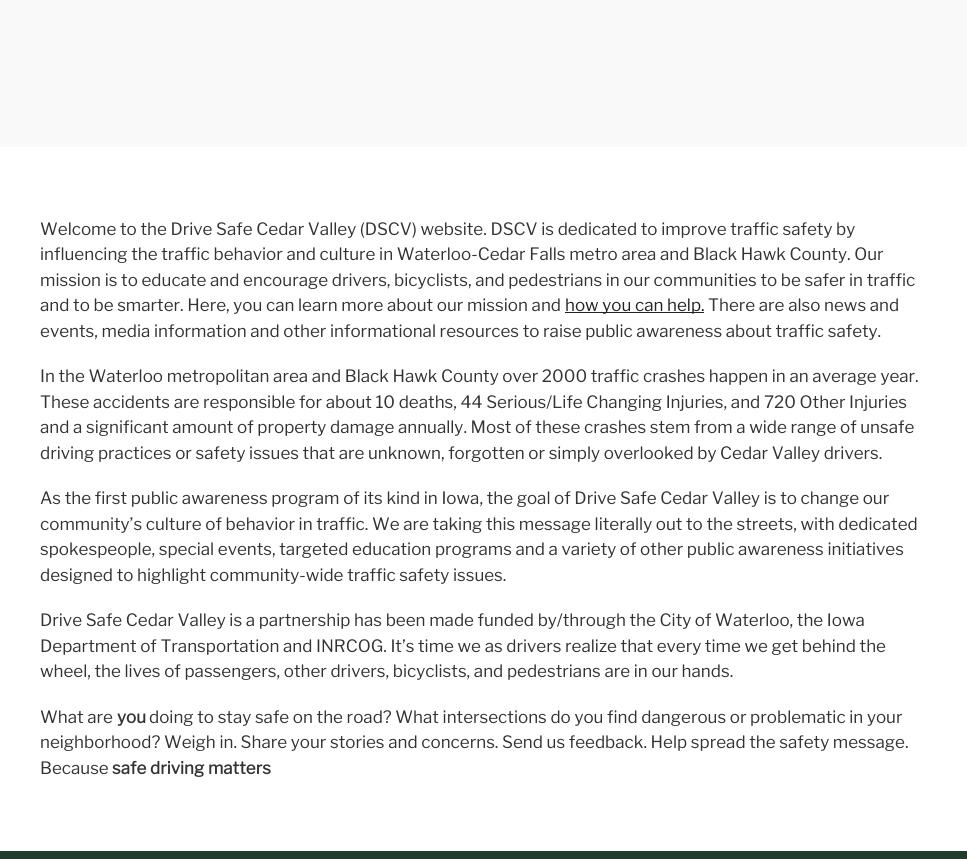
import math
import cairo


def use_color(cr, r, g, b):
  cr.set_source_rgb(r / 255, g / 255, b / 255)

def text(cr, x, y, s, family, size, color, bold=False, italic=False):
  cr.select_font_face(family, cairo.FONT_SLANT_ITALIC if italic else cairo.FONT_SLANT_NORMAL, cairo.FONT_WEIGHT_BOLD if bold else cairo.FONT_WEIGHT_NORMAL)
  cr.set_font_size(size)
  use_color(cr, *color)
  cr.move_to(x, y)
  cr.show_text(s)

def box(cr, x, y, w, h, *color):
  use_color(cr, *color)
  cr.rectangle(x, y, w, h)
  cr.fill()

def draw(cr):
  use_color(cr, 255, 255, 255)
  cr.paint()
  box(cr, 0, 0, 967, 147, 249, 249, 249)
  box(cr, 565, 312, 139, 1, 34, 34, 34)
  box(cr, 0, 851, 967, 8, 34, 61, 46)
  text(cr, 40, 235, "Welcome to the Drive Safe Cedar Valley (DSCV) website. DSCV is dedicated to improve traffic safety by", "Libre Franklin Thin", 17, (51, 51, 51))
  text(cr, 40, 260, "influencing the traffic behavior and culture in Waterloo-Cedar Falls metro area and Black Hawk County. Our", "Libre Franklin Thin", 17, (51, 51, 51))
  text(cr, 40, 286, "mission is to educate and encourage drivers, bicyclists, and pedestrians in our communities to be safer in traffic", "Libre Franklin Thin", 17, (51, 51, 51))
  text(cr, 40, 311, "and to be smarter. Here, you can learn more about our mission and", "Libre Franklin Thin", 17, (51, 51, 51))
  text(cr, 565, 311, "how you can help.", "Libre Franklin Thin", 17, (34, 34, 34))
  text(cr, 708, 311, "There are also news and", "Libre Franklin Thin", 17, (51, 51, 51))
  text(cr, 40, 337, "events, media information and other informational resources to raise public awareness about traffic safety.", "Libre Franklin Thin", 17, (51, 51, 51))
  text(cr, 40, 382, "In the Waterloo metropolitan area and Black Hawk County over 2000 traffic crashes happen in an average year.", "Libre Franklin Thin", 17, (51, 51, 51))
  text(cr, 40, 408, "These accidents are responsible for about 10 deaths, 44 Serious/Life Changing Injuries, and 720 Other Injuries", "Libre Franklin Thin", 17, (51, 51, 51))
  text(cr, 40, 433, "and a significant amount of property damage annually. Most of these crashes stem from a wide range of unsafe", "Libre Franklin Thin", 17, (51, 51, 51))
  text(cr, 40, 459, "driving practices or safety issues that are unknown, forgotten or simply overlooked by Cedar Valley drivers.", "Libre Franklin Thin", 17, (51, 51, 51))
  text(cr, 40, 504, "As the first public awareness program of its kind in Iowa, the goal of Drive Safe Cedar Valley is to change our", "Libre Franklin Thin", 17, (51, 51, 51))
  text(cr, 40, 530, "community’s culture of behavior in traffic. We are taking this message literally out to the streets, with dedicated", "Libre Franklin Thin", 17, (51, 51, 51))
  text(cr, 40, 555, "spokespeople, special events, targeted education programs and a variety of other public awareness initiatives", "Libre Franklin Thin", 17, (51, 51, 51))
  text(cr, 40, 581, "designed to highlight community-wide traffic safety issues.", "Libre Franklin Thin", 17, (51, 51, 51))
  text(cr, 40, 626, "Drive Safe Cedar Valley is a partnership has been made funded by/through the City of Waterloo, the Iowa", "Libre Franklin Thin", 17, (51, 51, 51))
  text(cr, 40, 652, "Department of Transportation and INRCOG. It’s time we as drivers realize that every time we get behind the", "Libre Franklin Thin", 17, (51, 51, 51))
  text(cr, 40, 677, "wheel, the lives of passengers, other drivers, bicyclists, and pedestrians are in our hands.", "Libre Franklin Thin", 17, (51, 51, 51))
  text(cr, 40, 723, "What are", "Libre Franklin Thin", 17, (51, 51, 51))
  text(cr, 117, 723, "you", "Libre Franklin", 17, (51, 51, 51), bold=True)
  text(cr, 149, 723, "doing to stay safe on the road? What intersections do you find dangerous or problematic in your", "Libre Franklin Thin", 17, (51, 51, 51))
  text(cr, 40, 748, "neighborhood? Weigh in. Share your stories and concerns. Send us feedback. Help spread the safety message.", "Libre Franklin Thin", 17, (51, 51, 51))
  text(cr, 40, 774, "Because", "Libre Franklin Thin", 17, (51, 51, 51))
  text(cr, 112, 774, "safe driving matters", "Libre Franklin", 17, (51, 51, 51), bold=True)


surface = cairo.ImageSurface(cairo.FORMAT_RGB24, 967, 859)
cr = cairo.Context(surface)
options = cairo.FontOptions()
options.set_hint_metrics(cairo.HINT_METRICS_OFF)
options.set_hint_style(cairo.HINT_STYLE_NONE)
cr.set_font_options(options)
cr.set_miter_limit(4)
draw(cr)
surface.write_to_png("out.png")
